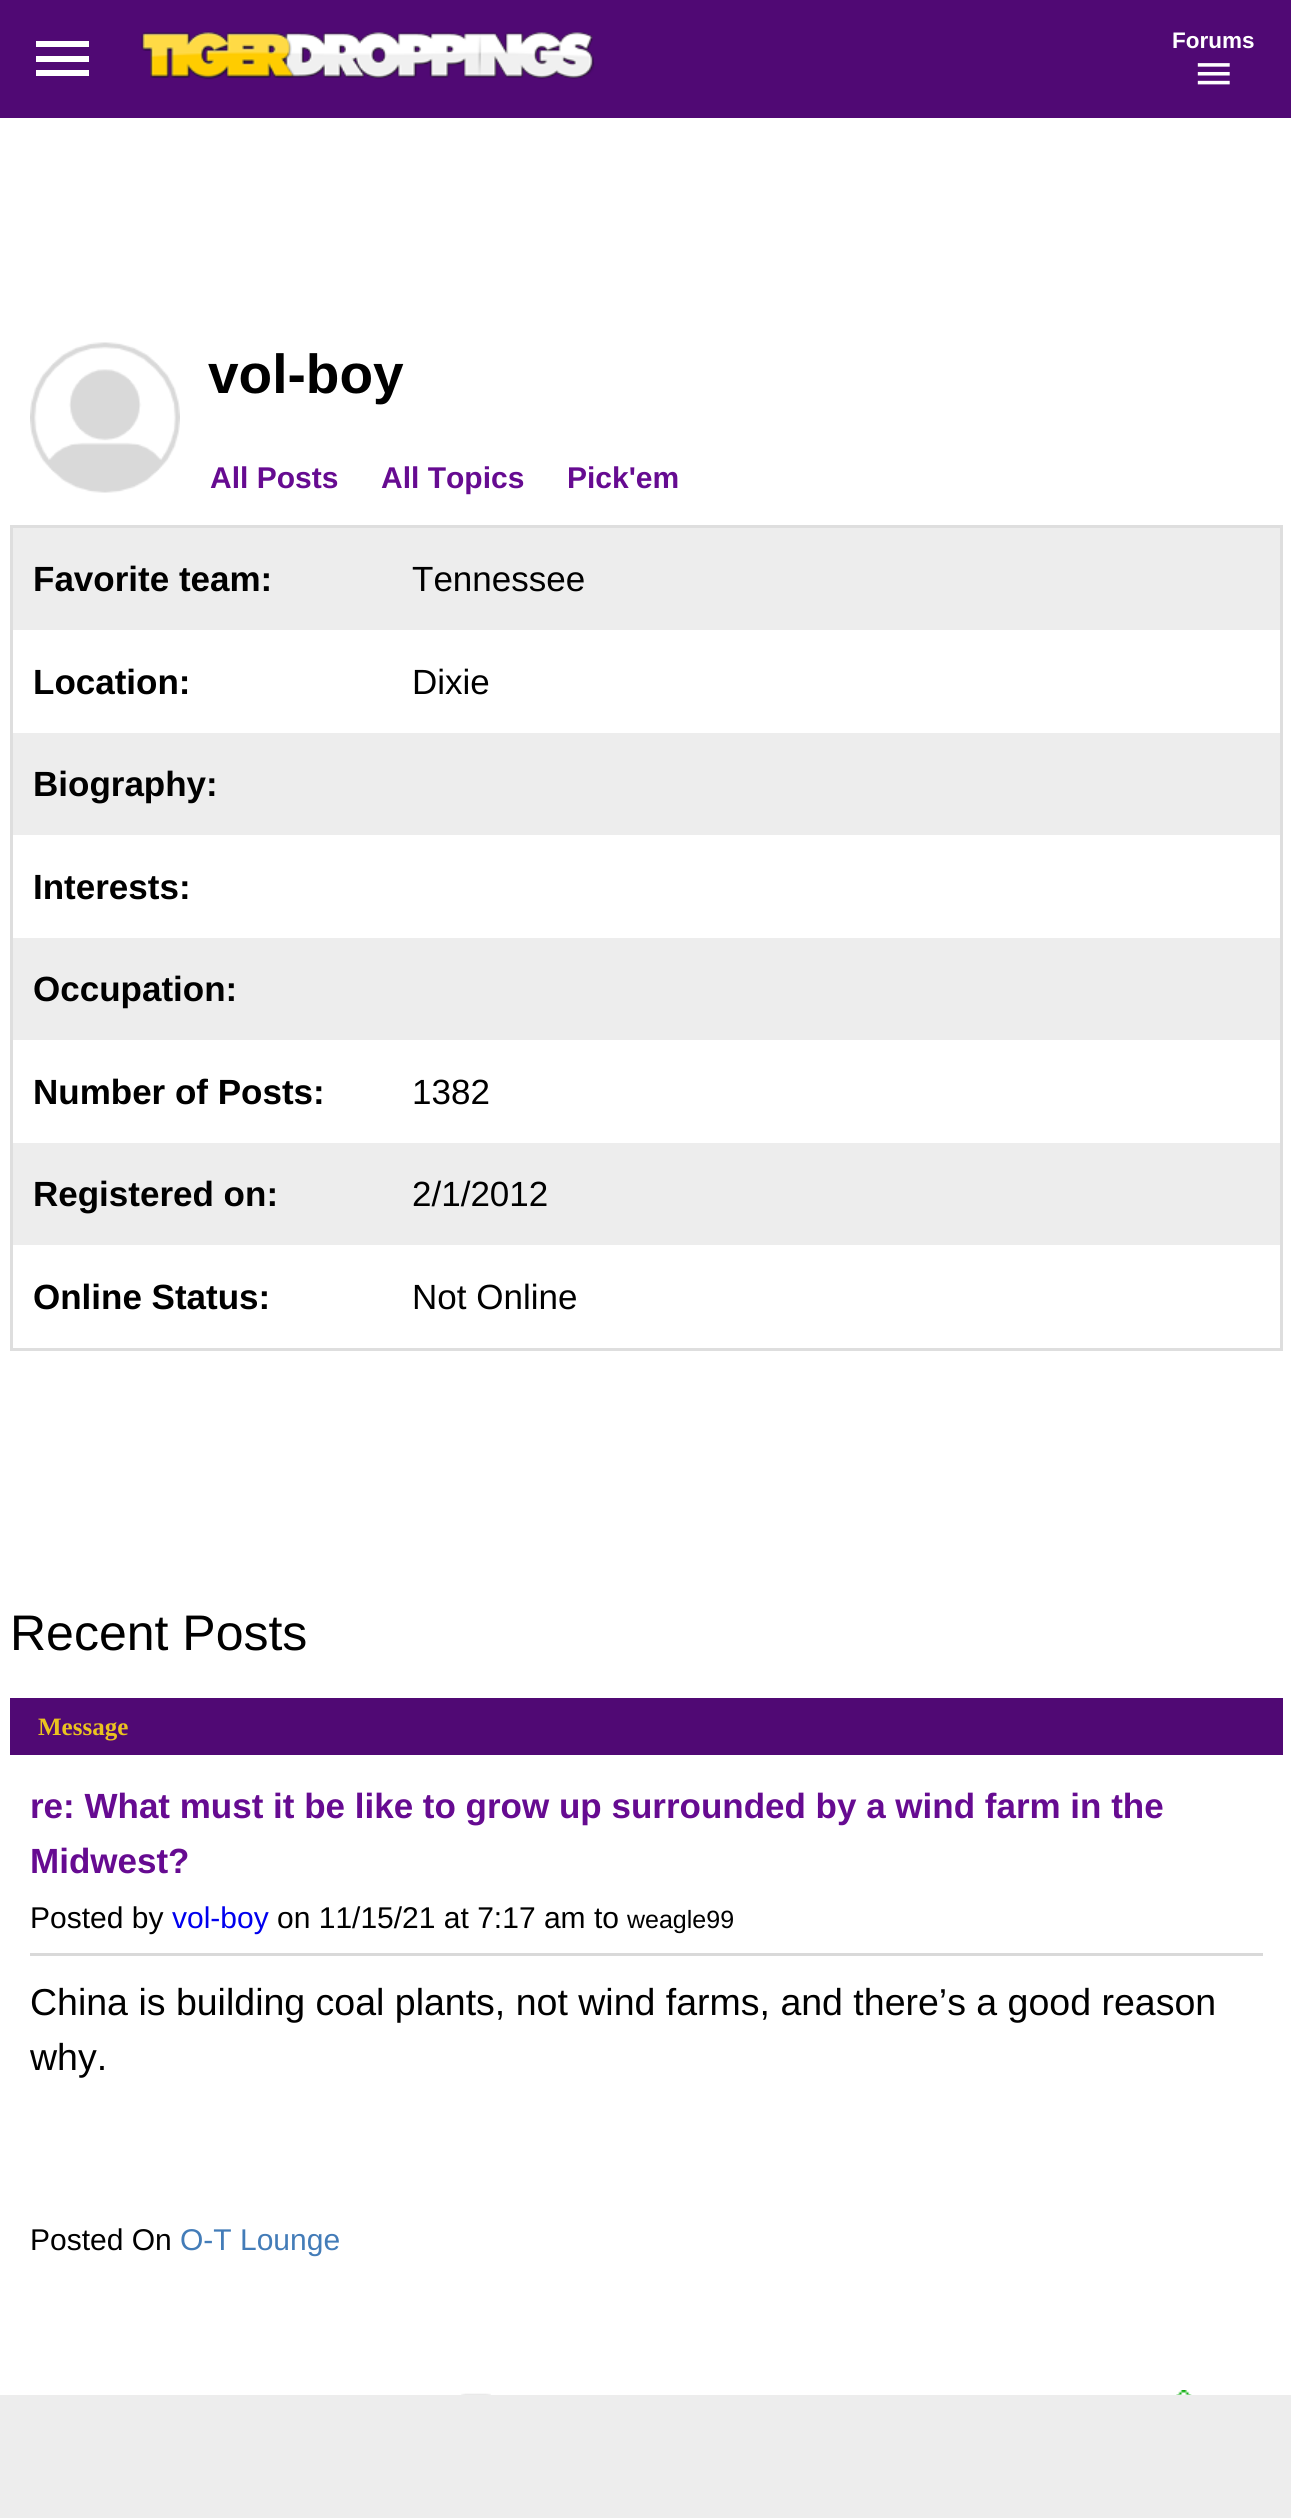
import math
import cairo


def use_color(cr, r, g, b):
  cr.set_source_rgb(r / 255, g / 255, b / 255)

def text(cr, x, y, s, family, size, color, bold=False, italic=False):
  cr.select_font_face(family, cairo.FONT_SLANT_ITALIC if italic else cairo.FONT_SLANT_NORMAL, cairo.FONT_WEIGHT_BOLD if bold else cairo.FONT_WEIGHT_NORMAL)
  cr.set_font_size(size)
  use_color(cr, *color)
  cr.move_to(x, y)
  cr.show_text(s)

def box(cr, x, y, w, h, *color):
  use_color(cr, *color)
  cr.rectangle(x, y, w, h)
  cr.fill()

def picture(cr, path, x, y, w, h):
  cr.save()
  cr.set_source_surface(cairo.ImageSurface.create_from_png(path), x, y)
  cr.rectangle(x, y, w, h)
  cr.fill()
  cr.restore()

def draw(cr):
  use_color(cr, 80, 9, 116)
  cr.paint()
  use_color(cr, 255, 255, 255)
  cr.new_path()
  cr.move_to(36, 76)
  cr.line_to(89, 76)
  cr.line_to(89, 70)
  cr.line_to(36, 70)
  cr.close_path()
  cr.move_to(36, 62)
  cr.line_to(89, 62)
  cr.line_to(89, 56)
  cr.line_to(36, 56)
  cr.close_path()
  cr.move_to(36, 41)
  cr.line_to(36, 47)
  cr.line_to(89, 47)
  cr.line_to(89, 41)
  cr.close_path()
  cr.fill()
  picture(cr, "img_01.png", 141, 31, 454, 49)
  picture(cr, "img_02.png", 1197, 63, 33, 22)
  box(cr, 0, 118, 1291, 2277, 255, 255, 255)
  picture(cr, "img_03.png", 30, 342, 150, 151)
  box(cr, 10, 525, 1270, 823, 222, 222, 222)
  box(cr, 1280, 525, 3, 825, 222, 222, 222)
  box(cr, 10, 1348, 1273, 3, 222, 222, 222)
  box(cr, 13, 528, 1267, 102, 237, 237, 237)
  box(cr, 13, 630, 1267, 103, 255, 255, 255)
  box(cr, 13, 733, 1267, 102, 237, 237, 237)
  box(cr, 13, 835, 1267, 103, 255, 255, 255)
  box(cr, 13, 938, 1267, 102, 237, 237, 237)
  box(cr, 13, 1040, 1267, 103, 255, 255, 255)
  box(cr, 13, 1143, 1267, 102, 237, 237, 237)
  box(cr, 13, 1245, 1267, 103, 255, 255, 255)
  box(cr, 10, 1698, 1273, 57, 80, 9, 116)
  box(cr, 30, 1953, 1233, 3, 217, 217, 217)
  picture(cr, "img_04.png", 461, 2393, 30, 2)
  picture(cr, "img_05.png", 1176, 2390, 16, 5)
  box(cr, 0, 2395, 1291, 123, 237, 237, 237)
  text(cr, 1172, 48, "Forums", "Liberation Sans", 22.5, (255, 255, 255), bold=True)
  text(cr, 208, 393, "vol-boy", "Liberation Sans", 55, (0, 0, 0), bold=True)
  text(cr, 210, 488, "All Posts", "Liberation Sans", 30, (102, 11, 145), bold=True)
  text(cr, 381, 488, "All Topics", "Liberation Sans", 30, (102, 11, 145), bold=True)
  text(cr, 567, 488, "Pick'em", "Liberation Sans", 30, (102, 11, 145), bold=True)
  text(cr, 33, 591, "Favorite team:", "Liberation Sans", 35, (0, 0, 0), bold=True)
  text(cr, 412, 591, "Tennessee", "Liberation Sans", 35, (0, 0, 0))
  text(cr, 33, 694, "Location:", "Liberation Sans", 35, (0, 0, 0), bold=True)
  text(cr, 412, 694, "Dixie", "Liberation Sans", 35, (0, 0, 0))
  text(cr, 33, 796, "Biography:", "Liberation Sans", 35, (0, 0, 0), bold=True)
  text(cr, 33, 899, "Interests:", "Liberation Sans", 35, (0, 0, 0), bold=True)
  text(cr, 33, 1001, "Occupation:", "Liberation Sans", 35, (0, 0, 0), bold=True)
  text(cr, 33, 1104, "Number of Posts:", "Liberation Sans", 35, (0, 0, 0), bold=True)
  text(cr, 412, 1104, "1382", "Liberation Sans", 35, (0, 0, 0))
  text(cr, 33, 1206, "Registered on:", "Liberation Sans", 35, (0, 0, 0), bold=True)
  text(cr, 412, 1206, "2/1/2012", "Liberation Sans", 35, (0, 0, 0))
  text(cr, 33, 1309, "Online Status:", "Liberation Sans", 35, (0, 0, 0), bold=True)
  text(cr, 412, 1309, "Not Online", "Liberation Sans", 35, (0, 0, 0))
  text(cr, 10, 1650, "Recent Posts", "Liberation Sans", 50, (0, 0, 0))
  text(cr, 38, 1735, "Message", "Liberation Serif", 25, (235, 194, 31), bold=True)
  text(cr, 30, 1818, "re: What must it be like to grow up surrounded by a wind farm in the", "Liberation Sans", 35, (102, 11, 145), bold=True)
  text(cr, 30, 1873, "Midwest?", "Liberation Sans", 35, (102, 11, 145), bold=True)
  text(cr, 30, 1928, "Posted by", "Liberation Sans", 30, (0, 0, 0))
  text(cr, 172, 1928, "vol-boy", "Liberation Sans", 30, (0, 0, 238))
  text(cr, 277, 1928, "on 11/15/21 at 7:17 am to", "Liberation Sans", 30, (0, 0, 0))
  text(cr, 627, 1928, "weagle99", "Liberation Sans", 25, (0, 0, 0))
  text(cr, 30, 2015, "China is building coal plants, not wind farms, and there’s a good reason", "Liberation Sans", 37.5, (0, 0, 0))
  text(cr, 30, 2070, "why.", "Liberation Sans", 37.5, (0, 0, 0))
  text(cr, 30, 2250, "Posted On", "Liberation Sans", 30, (0, 0, 0))
  text(cr, 180, 2250, "O-T Lounge", "Liberation Sans", 30, (67, 124, 184))


surface = cairo.ImageSurface(cairo.FORMAT_RGB24, 1291, 2518)
cr = cairo.Context(surface)
options = cairo.FontOptions()
options.set_hint_metrics(cairo.HINT_METRICS_OFF)
options.set_hint_style(cairo.HINT_STYLE_NONE)
cr.set_font_options(options)
cr.set_miter_limit(4)
draw(cr)
surface.write_to_png("out.png")
